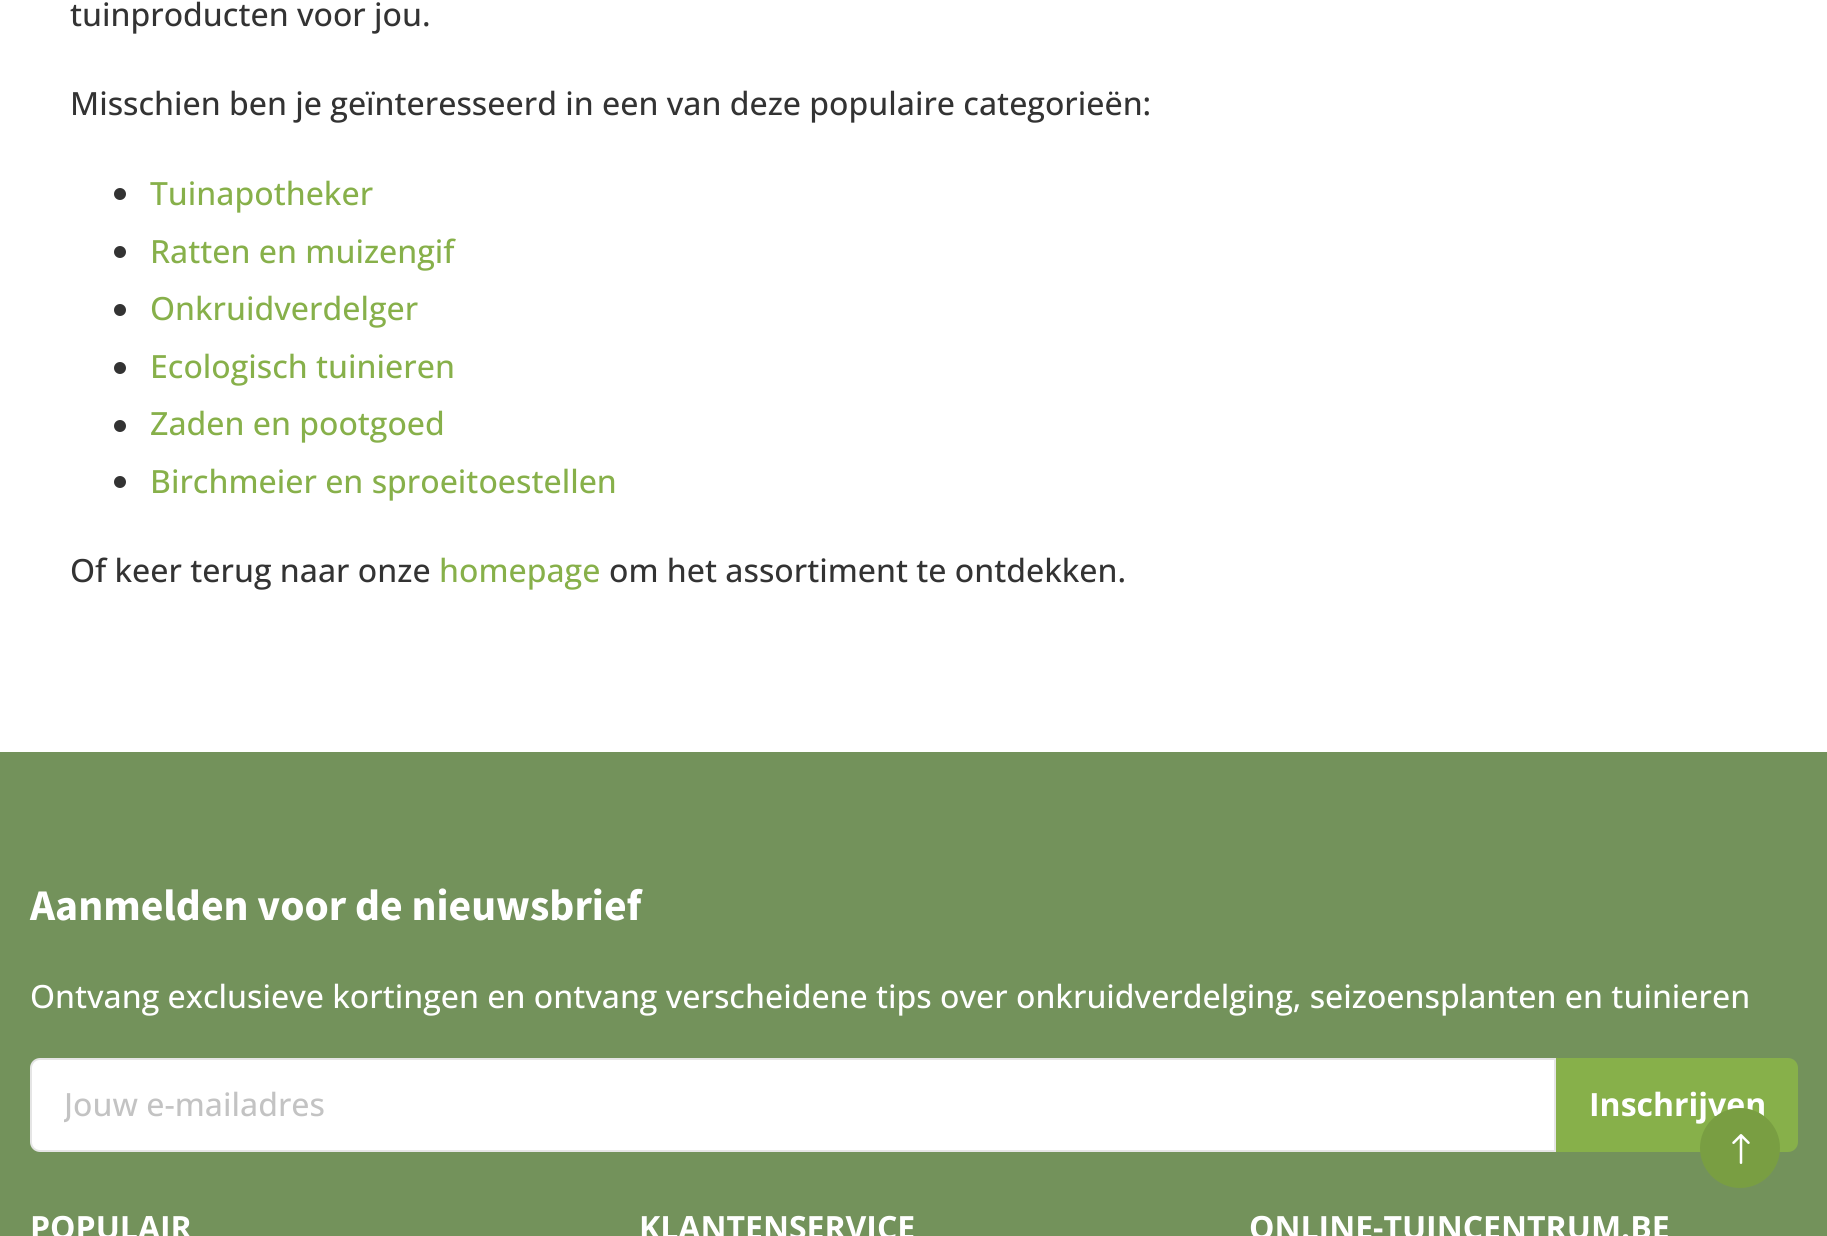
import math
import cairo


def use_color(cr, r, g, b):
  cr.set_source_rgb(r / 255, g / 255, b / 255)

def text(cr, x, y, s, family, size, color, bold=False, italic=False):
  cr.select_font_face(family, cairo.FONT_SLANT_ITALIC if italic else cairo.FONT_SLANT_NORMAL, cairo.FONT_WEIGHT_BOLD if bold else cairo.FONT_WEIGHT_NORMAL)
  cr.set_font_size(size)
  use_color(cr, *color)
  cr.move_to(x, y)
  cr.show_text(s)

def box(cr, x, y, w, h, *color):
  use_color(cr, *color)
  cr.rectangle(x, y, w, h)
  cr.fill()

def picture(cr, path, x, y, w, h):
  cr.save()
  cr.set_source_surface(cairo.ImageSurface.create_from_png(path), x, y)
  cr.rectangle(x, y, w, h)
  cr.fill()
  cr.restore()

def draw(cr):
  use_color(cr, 255, 255, 255)
  cr.paint()
  use_color(cr, 51, 51, 51)
  cr.arc(120, 194, 6, 0, 2 * math.pi)
  cr.fill()
  cr.arc(120, 252, 6, 0, 2 * math.pi)
  cr.fill()
  cr.arc(120, 310, 6, 0, 2 * math.pi)
  cr.fill()
  cr.arc(120, 368, 6, 0, 2 * math.pi)
  cr.fill()
  cr.arc(120, 426, 6, 0, 2 * math.pi)
  cr.fill()
  cr.arc(120, 482, 6, 0, 2 * math.pi)
  cr.fill()
  box(cr, 0, 752, 1827, 484, 115, 146, 91)
  use_color(cr, 255, 255, 255)
  cr.new_path()
  cr.move_to(40, 1059)
  cr.line_to(1555, 1059)
  cr.line_to(1555, 1151)
  cr.line_to(40, 1151)
  cr.curve_to(35, 1151, 31, 1147, 31, 1142)
  cr.line_to(31, 1068)
  cr.curve_to(31, 1063, 35, 1059, 40, 1059)
  cr.close_path()
  cr.fill_preserve()
  use_color(cr, 229, 229, 229)
  cr.stroke()
  use_color(cr, 135, 176, 74)
  cr.new_path()
  cr.move_to(1557, 1059)
  cr.line_to(1788, 1059)
  cr.curve_to(1793, 1059, 1797, 1063, 1797, 1068)
  cr.line_to(1797, 1142)
  cr.curve_to(1797, 1147, 1793, 1151, 1788, 1151)
  cr.line_to(1557, 1151)
  cr.close_path()
  cr.fill_preserve()
  cr.stroke()
  text(cr, 70, 26, "tuinproducten voor jou.", "Open Sans Medium", 32, (51, 51, 51))
  text(cr, 70, 115, "Misschien ben je geïnteresseerd in een van deze populaire categorieën:", "Open Sans Medium", 32, (51, 51, 51))
  text(cr, 150, 205, "Tuinapotheker", "Open Sans Medium", 32, (135, 176, 74))
  text(cr, 150, 263, "Ratten en muizengif", "Open Sans Medium", 32, (135, 176, 74))
  text(cr, 150, 320, "Onkruidverdelger", "Open Sans Medium", 32, (135, 176, 74))
  text(cr, 150, 378, "Ecologisch tuinieren", "Open Sans Medium", 32, (135, 176, 74))
  text(cr, 150, 435, "Zaden en pootgoed", "Open Sans Medium", 32, (135, 176, 74))
  text(cr, 150, 493, "Birchmeier en sproeitoestellen", "Open Sans Medium", 32, (135, 176, 74))
  text(cr, 70, 582, "Of keer terug naar onze", "Open Sans Medium", 32, (51, 51, 51))
  text(cr, 439, 582, "homepage", "Open Sans Medium", 32, (135, 176, 74))
  text(cr, 609, 582, "om het assortiment te ontdekken.", "Open Sans Medium", 32, (51, 51, 51))
  text(cr, 30, 920, "Aanmelden voor de nieuwsbrief", "Source Sans Pro", 43.75, (255, 255, 255), bold=True)
  text(cr, 30, 1008, "Ontvang exclusieve kortingen en ontvang verscheidene tips over onkruidverdelging, seizoensplanten en tuinieren", "Open Sans Medium", 32, (255, 255, 255))
  cr.save()
  cr.rectangle(64, 1082, 1458, 44)
  cr.clip()
  text(cr, 64, 1116, "Jouw e-mailadres", "Open Sans Medium", 32, (195, 195, 195))
  cr.restore()
  text(cr, 1589, 1116, "Inschrijven", "Open Sans", 32, (255, 255, 255), bold=True)
  text(cr, 30, 1239, "POPULAIR", "Open Sans", 32, (255, 255, 255), bold=True)
  text(cr, 639, 1239, "KLANTENSERVICE", "Open Sans", 32, (255, 255, 255), bold=True)
  text(cr, 1249, 1239, "ONLINE-TUINCENTRUM.BE", "Open Sans", 32, (255, 255, 255), bold=True)
  use_color(cr, 121, 158, 66)
  cr.new_path()
  cr.arc(1740, 1148, 40, 0, 2 * math.pi)
  cr.fill()
  picture(cr, "img_01.png", 1732, 1134, 18, 30)


surface = cairo.ImageSurface(cairo.FORMAT_RGB24, 1827, 1236)
cr = cairo.Context(surface)
options = cairo.FontOptions()
options.set_hint_metrics(cairo.HINT_METRICS_OFF)
options.set_hint_style(cairo.HINT_STYLE_NONE)
cr.set_font_options(options)
cr.set_miter_limit(4)
draw(cr)
surface.write_to_png("out.png")
